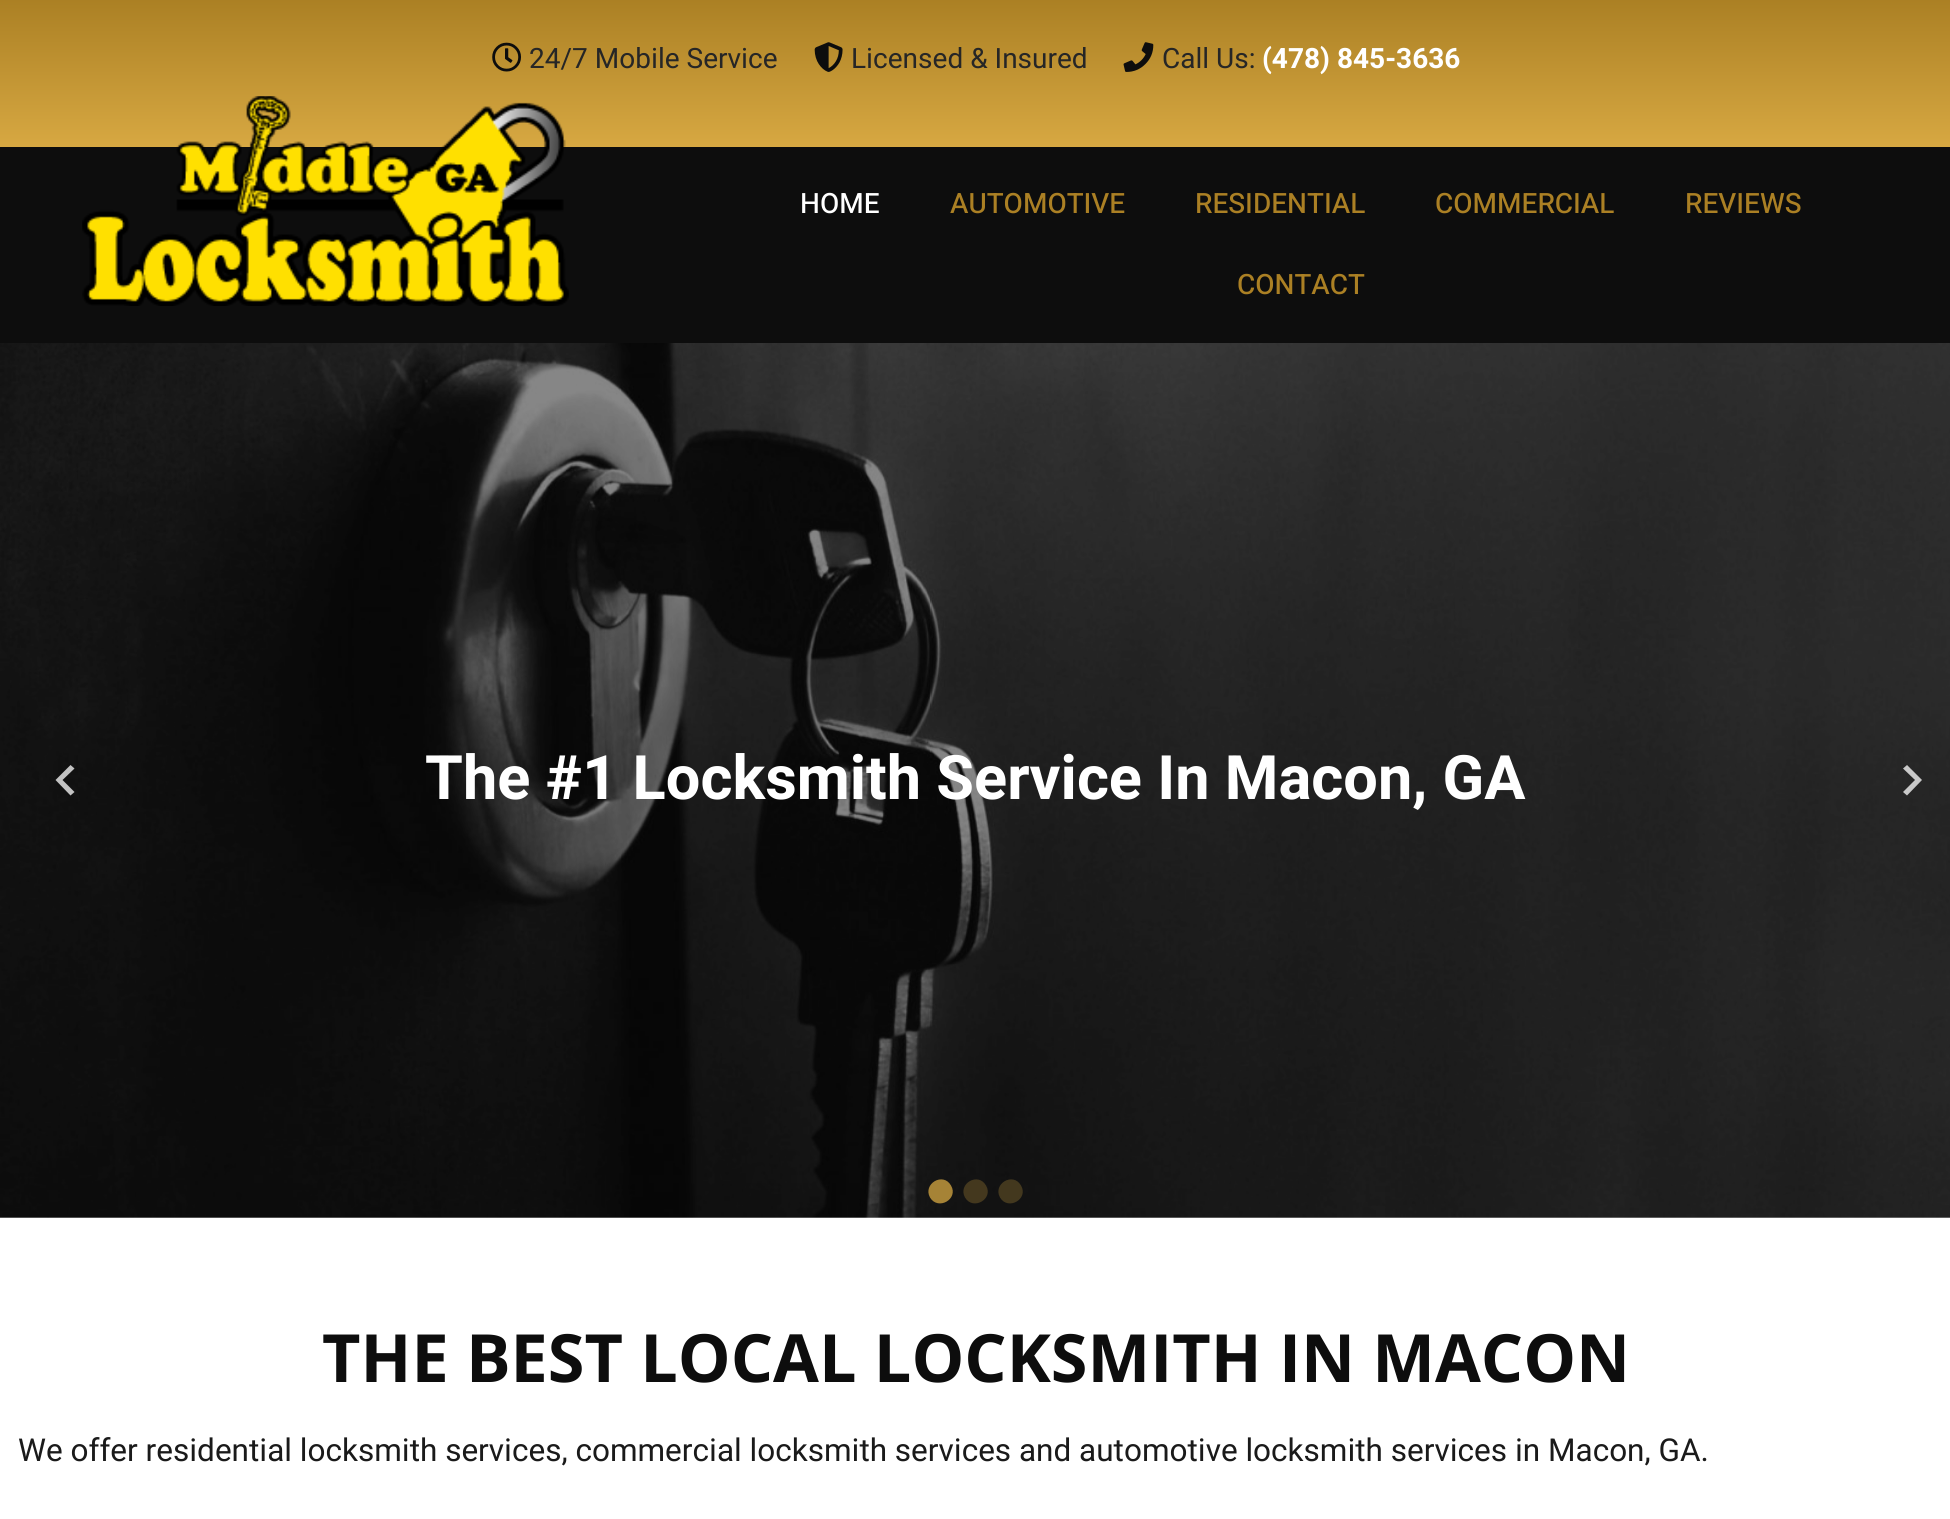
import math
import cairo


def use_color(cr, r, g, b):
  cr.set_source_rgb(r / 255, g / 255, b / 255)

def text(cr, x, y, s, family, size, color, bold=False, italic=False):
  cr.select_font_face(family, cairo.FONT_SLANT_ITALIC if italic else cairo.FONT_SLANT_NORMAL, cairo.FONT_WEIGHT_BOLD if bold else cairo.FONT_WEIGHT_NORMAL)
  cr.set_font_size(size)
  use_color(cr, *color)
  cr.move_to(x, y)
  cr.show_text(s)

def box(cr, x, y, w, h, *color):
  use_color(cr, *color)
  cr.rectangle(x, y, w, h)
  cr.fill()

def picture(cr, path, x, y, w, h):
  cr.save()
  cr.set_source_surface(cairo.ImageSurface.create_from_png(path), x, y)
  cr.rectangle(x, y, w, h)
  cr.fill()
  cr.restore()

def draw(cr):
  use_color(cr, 255, 255, 255)
  cr.paint()
  gradient = cairo.LinearGradient(976, 0, 976, 147)
  gradient.add_color_stop_rgba(0, 0.671, 0.502, 0.141, 1)
  gradient.add_color_stop_rgba(1, 0.843, 0.659, 0.259, 1)
  cr.set_source(gradient)
  cr.rectangle(0, 0, 1950, 147)
  cr.fill()
  picture(cr, "img_01.png", 492, 42, 29, 30)
  picture(cr, "img_02.png", 814, 42, 29, 30)
  picture(cr, "img_03.png", 1123, 42, 31, 30)
  box(cr, 0, 147, 1950, 196, 13, 13, 13)
  picture(cr, "img_04.png", 82, 96, 487, 210)
  picture(cr, "img_05.png", 0, 343, 1950, 875)
  use_color(cr, 195, 195, 195)
  cr.new_path()
  cr.move_to(74.5, 768.5)
  cr.line_to(70.5, 765)
  cr.line_to(55.5, 780)
  cr.line_to(70.5, 795.5)
  cr.line_to(74.5, 792)
  cr.line_to(62.5, 780)
  cr.close_path()
  cr.fill()
  cr.set_source_rgba(1, 1, 1, 0.75)
  cr.new_path()
  cr.move_to(1907, 765)
  cr.line_to(1903, 768.5)
  cr.line_to(1915, 780)
  cr.line_to(1903, 792)
  cr.line_to(1907, 795.5)
  cr.line_to(1922, 780)
  cr.close_path()
  cr.fill()
  use_color(cr, 166, 131, 54)
  cr.new_path()
  cr.move_to(951, 1185.5)
  cr.curve_to(959, 1199, 938, 1211, 930, 1197.5)
  cr.curve_to(922.5, 1184, 943, 1171.5, 951, 1185.5)
  cr.close_path()
  cr.fill()
  use_color(cr, 68, 56, 30)
  cr.new_path()
  cr.move_to(986, 1185.5)
  cr.curve_to(994, 1199, 973, 1211, 965, 1197.5)
  cr.curve_to(957.5, 1184, 978, 1171.5, 986, 1185.5)
  cr.close_path()
  cr.fill()
  use_color(cr, 67, 56, 30)
  cr.new_path()
  cr.move_to(1021, 1185.5)
  cr.curve_to(1029, 1199, 1008, 1211, 1000, 1197.5)
  cr.curve_to(992.5, 1184, 1013, 1171.5, 1021, 1185.5)
  cr.close_path()
  cr.fill()
  text(cr, 529, 68, "24/7 Mobile Service", "Heebo", 28, (38, 38, 38))
  text(cr, 851, 68, "Licensed & Insured", "Heebo", 28, (38, 38, 38))
  text(cr, 1162, 68, "Call Us:", "Heebo", 28, (38, 38, 38))
  text(cr, 1262, 68, "(478) 845-3636", "Heebo", 28, (255, 255, 255), bold=True)
  text(cr, 800, 213, "HOME", "Heebo Medium", 28, (255, 255, 255))
  text(cr, 950, 213, "AUTOMOTIVE", "Heebo Medium", 28, (171, 128, 36))
  text(cr, 1195, 213, "RESIDENTIAL", "Heebo Medium", 28, (171, 128, 36))
  text(cr, 1435, 213, "COMMERCIAL", "Heebo Medium", 28, (171, 128, 36))
  text(cr, 1685, 213, "REVIEWS", "Heebo Medium", 28, (171, 128, 36))
  text(cr, 1237, 294, "CONTACT", "Heebo Medium", 28, (171, 128, 36))
  text(cr, 425, 799, "The #1 Locksmith Service In Macon, GA", "Heebo", 61.25, (255, 255, 255), bold=True)
  text(cr, 322, 1382, "THE BEST LOCAL LOCKSMITH IN MACON", "Open Sans", 66.5, (13, 13, 13), bold=True)
  text(cr, 18, 1461, "We offer residential locksmith services, commercial locksmith services and automotive locksmith services in Macon, GA.", "Heebo", 31.5, (26, 26, 26))


surface = cairo.ImageSurface(cairo.FORMAT_RGB24, 1950, 1519)
cr = cairo.Context(surface)
options = cairo.FontOptions()
options.set_hint_metrics(cairo.HINT_METRICS_OFF)
options.set_hint_style(cairo.HINT_STYLE_NONE)
cr.set_font_options(options)
cr.set_miter_limit(4)
draw(cr)
surface.write_to_png("out.png")
